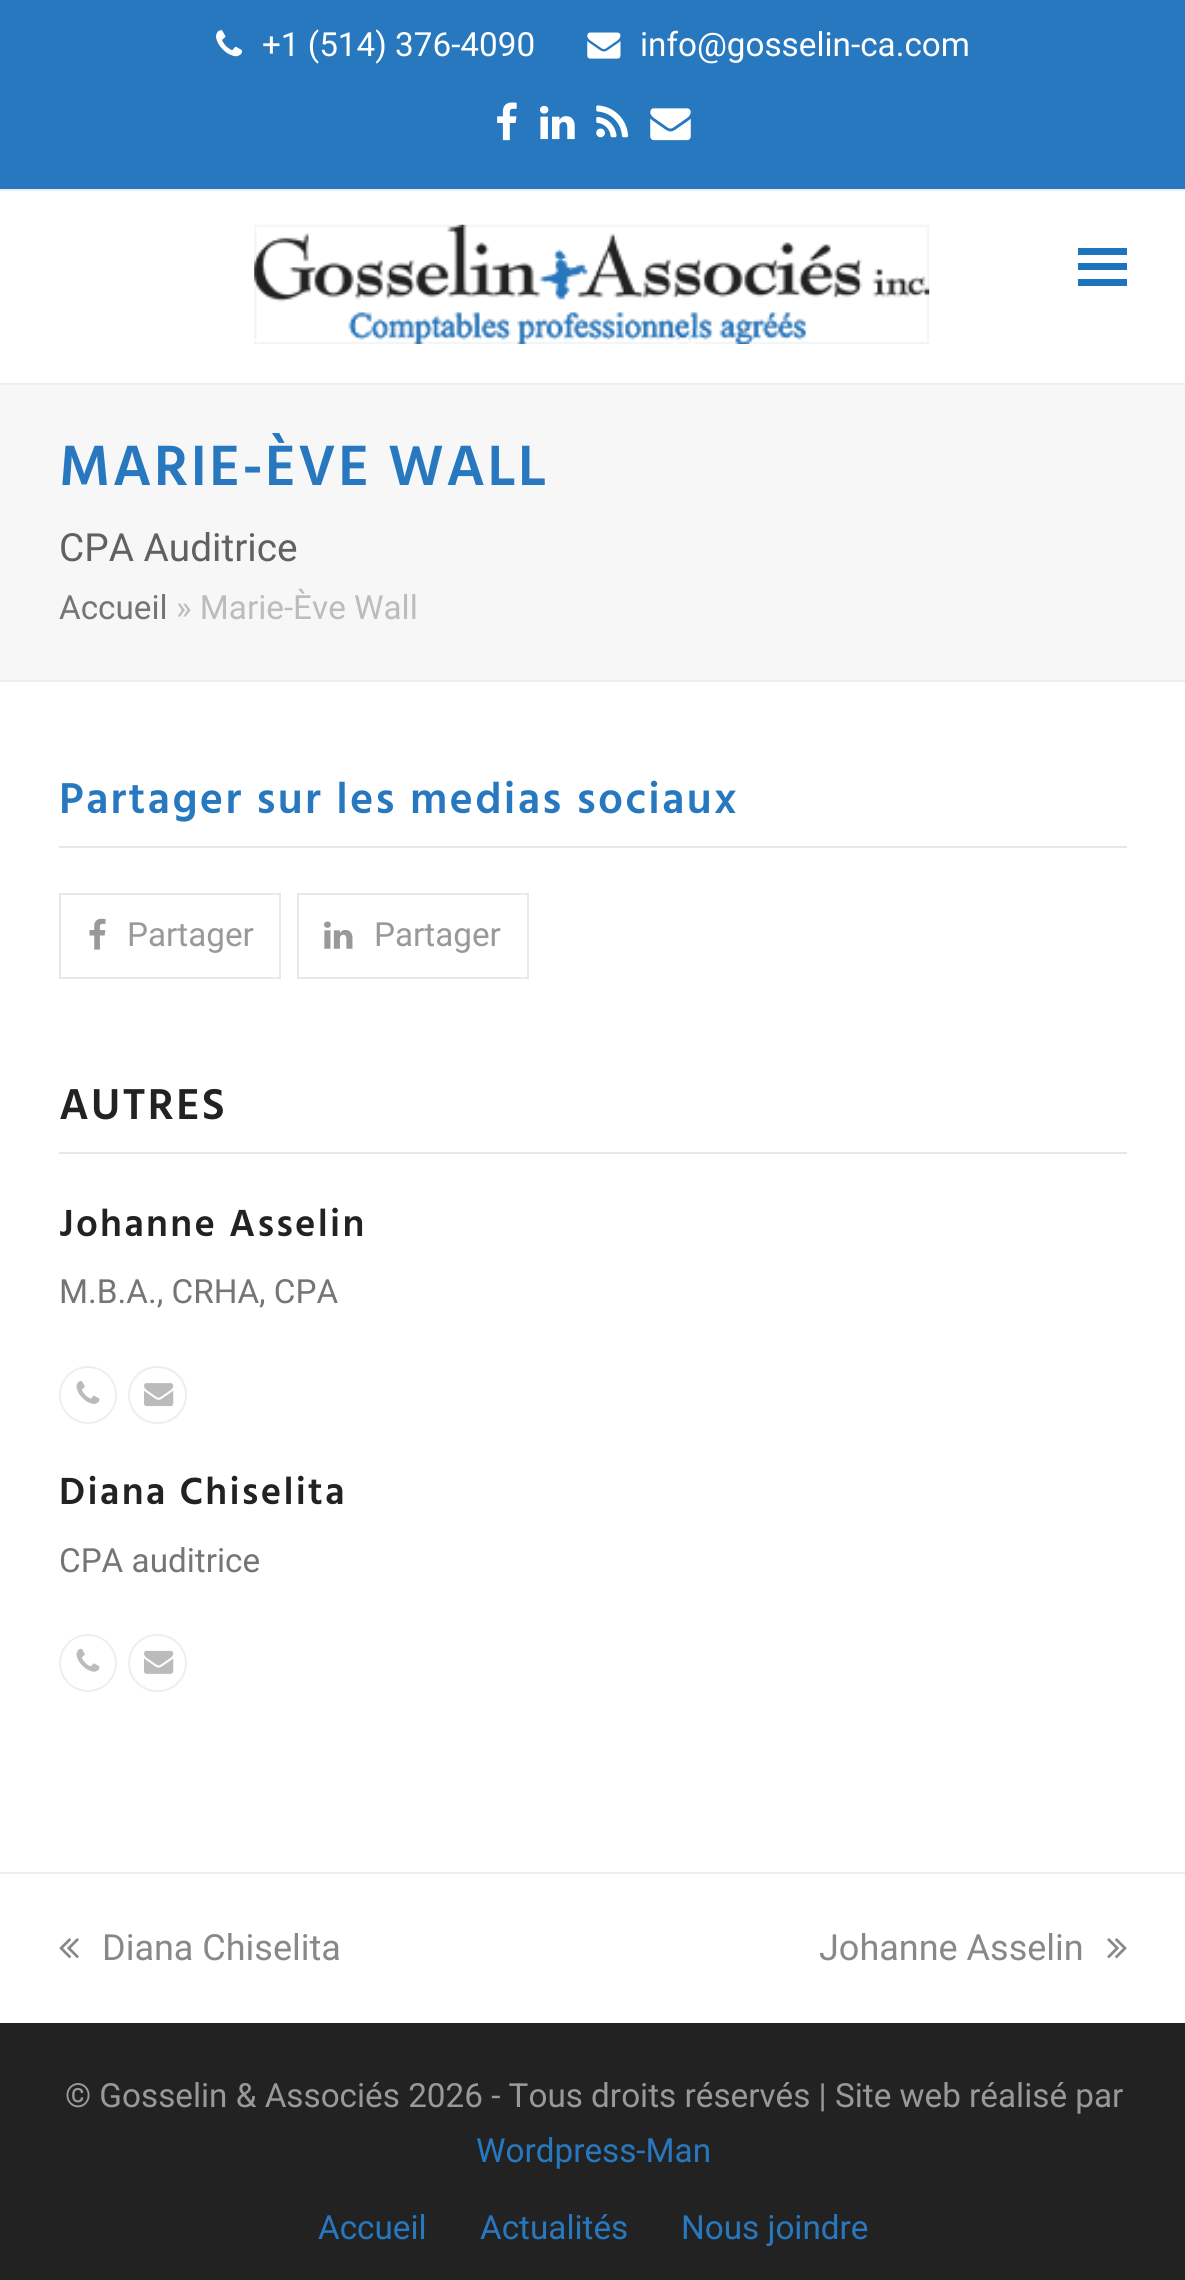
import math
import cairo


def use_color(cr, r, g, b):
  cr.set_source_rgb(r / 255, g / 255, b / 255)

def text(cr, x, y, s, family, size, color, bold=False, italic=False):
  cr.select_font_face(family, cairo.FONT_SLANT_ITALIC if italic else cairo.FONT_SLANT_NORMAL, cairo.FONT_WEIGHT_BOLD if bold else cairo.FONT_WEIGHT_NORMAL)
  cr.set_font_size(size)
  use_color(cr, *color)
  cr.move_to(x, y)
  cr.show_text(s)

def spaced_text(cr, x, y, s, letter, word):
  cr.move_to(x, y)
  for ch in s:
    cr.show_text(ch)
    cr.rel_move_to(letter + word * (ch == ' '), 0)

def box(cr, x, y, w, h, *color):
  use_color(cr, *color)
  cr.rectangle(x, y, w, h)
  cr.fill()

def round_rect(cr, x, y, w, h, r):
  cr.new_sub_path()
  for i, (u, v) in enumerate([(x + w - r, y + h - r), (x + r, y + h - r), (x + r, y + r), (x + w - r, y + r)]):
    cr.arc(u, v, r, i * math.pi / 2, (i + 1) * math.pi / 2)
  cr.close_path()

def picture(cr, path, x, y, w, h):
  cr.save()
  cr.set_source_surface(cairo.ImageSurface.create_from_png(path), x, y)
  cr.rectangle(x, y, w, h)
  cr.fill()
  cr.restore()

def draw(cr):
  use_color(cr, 255, 255, 255)
  cr.paint()
  box(cr, 0, 0, 1185, 189, 40, 120, 191)
  box(cr, 0, 189, 1185, 2, 238, 238, 238)
  picture(cr, "img_01.png", 216, 30, 27, 27)
  picture(cr, "img_02.png", 587, 32, 34, 27)
  picture(cr, "img_03.png", 497, 102, 20, 39)
  picture(cr, "img_04.png", 540, 105, 35, 35)
  picture(cr, "img_05.png", 596, 105, 33, 33)
  picture(cr, "img_06.png", 650, 108, 41, 33)
  picture(cr, "img_07.png", 254, 224, 676, 120)
  box(cr, 1078, 263, 49, 7, 30, 115, 190)
  box(cr, 1078, 248, 49, 7, 30, 115, 190)
  box(cr, 1078, 279, 49, 7, 30, 115, 190)
  box(cr, 0, 385, 1185, 295, 247, 247, 247)
  box(cr, 0, 383, 1185, 2, 238, 238, 238)
  box(cr, 0, 680, 1185, 2, 238, 238, 238)
  box(cr, 59, 846, 1068, 2, 232, 232, 232)
  cr.rectangle(60, 894, 220, 84)
  cr.stroke()
  picture(cr, "img_08.png", 89, 918, 17, 32)
  cr.rectangle(298, 894, 230, 84)
  cr.stroke()
  picture(cr, "img_09.png", 324, 921, 29, 28)
  box(cr, 59, 1152, 1068, 2, 232, 232, 232)
  cr.arc(88, 1395, 28, 0, 2 * math.pi)
  use_color(cr, 238, 238, 238)
  cr.stroke()
  picture(cr, "img_10.png", 76, 1381, 24, 23)
  round_rect(cr, 129, 1367, 57, 56, 28)
  cr.stroke()
  picture(cr, "img_11.png", 144, 1383, 30, 24)
  cr.arc(88, 1663, 28, 0, 2 * math.pi)
  cr.stroke()
  picture(cr, "img_12.png", 76, 1648, 24, 24)
  round_rect(cr, 129, 1635, 57, 56, 28)
  cr.stroke()
  picture(cr, "img_13.png", 144, 1650, 30, 24)
  box(cr, 0, 1872, 1185, 2, 238, 238, 238)
  picture(cr, "img_14.png", 59, 1938, 20, 21)
  picture(cr, "img_15.png", 1107, 1938, 20, 21)
  box(cr, 0, 2023, 1185, 257, 34, 34, 34)
  text(cr, 262, 56, "+1 (514) 376-4090", "Roboto", 33.25, (255, 255, 255))
  text(cr, 640, 56, "info@gosselin-ca.com", "Roboto", 33.25, (255, 255, 255))
  cr.select_font_face("Hind SemiBold")
  cr.set_font_size(58.25)
  use_color(cr, 40, 120, 191)
  spaced_text(cr, 59, 485, "MARIE-ÈVE WALL", 2.25, 0)
  text(cr, 59, 561, "CPA Auditrice", "Roboto", 38.75, (97, 97, 97))
  text(cr, 59, 619, "Accueil", "Roboto", 33.25, (117, 117, 117))
  text(cr, 176, 619, "» Marie-Ève Wall", "Roboto", 33.25, (188, 188, 188))
  cr.select_font_face("Hind SemiBold")
  cr.set_font_size(44.3)
  use_color(cr, 40, 120, 191)
  spaced_text(cr, 59, 813, "Partager sur les medias sociaux", 2.25, 0)
  text(cr, 127, 946, "Partager", "Roboto", 33.25, (153, 153, 153))
  text(cr, 374, 946, "Partager", "Roboto", 33.25, (153, 153, 153))
  cr.select_font_face("Hind SemiBold")
  cr.set_font_size(44.3)
  use_color(cr, 34, 34, 34)
  spaced_text(cr, 59, 1119, "AUTRES", 2.25, 0)
  cr.set_font_size(38.75)
  spaced_text(cr, 59, 1236, "Johanne Asselin", 2.25, 0)
  text(cr, 59, 1303, "M.B.A., CRHA, CPA", "Roboto", 33.25, (117, 117, 117))
  cr.select_font_face("Hind SemiBold")
  cr.set_font_size(38.75)
  use_color(cr, 34, 34, 34)
  spaced_text(cr, 59, 1504, "Diana Chiselita", 2.25, 0)
  text(cr, 59, 1572, "CPA auditrice", "Roboto", 33.25, (117, 117, 117))
  text(cr, 102, 1960, "Diana Chiselita", "Roboto", 36, (136, 136, 136))
  text(cr, 819, 1960, "Johanne Asselin", "Roboto", 36, (136, 136, 136))
  text(cr, 65, 2107, "© Gosselin & Associés 2026 - Tous droits réservés | Site web réalisé par", "Roboto", 33.25, (153, 153, 153))
  text(cr, 476, 2162, "Wordpress-Man", "Roboto", 33.25, (40, 120, 191))
  text(cr, 318, 2239, "Accueil", "Roboto", 33.25, (40, 120, 191))
  text(cr, 480, 2239, "Actualités", "Roboto", 33.25, (40, 120, 191))
  text(cr, 681, 2239, "Nous joindre", "Roboto", 33.25, (40, 120, 191))


surface = cairo.ImageSurface(cairo.FORMAT_RGB24, 1185, 2280)
cr = cairo.Context(surface)
options = cairo.FontOptions()
options.set_hint_metrics(cairo.HINT_METRICS_OFF)
options.set_hint_style(cairo.HINT_STYLE_NONE)
cr.set_font_options(options)
cr.set_miter_limit(4)
draw(cr)
surface.write_to_png("out.png")
